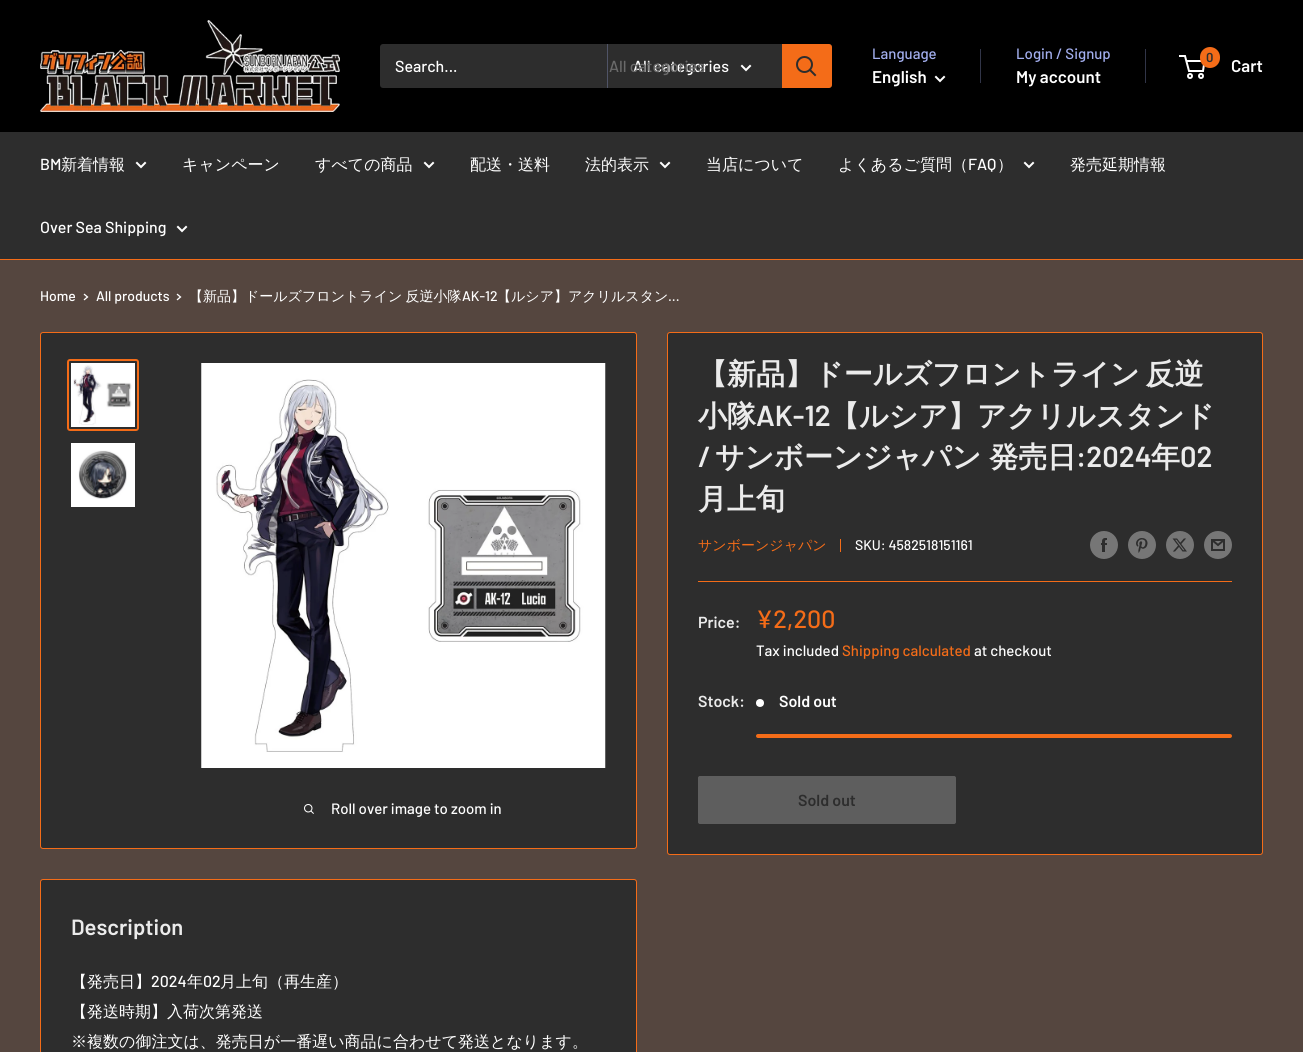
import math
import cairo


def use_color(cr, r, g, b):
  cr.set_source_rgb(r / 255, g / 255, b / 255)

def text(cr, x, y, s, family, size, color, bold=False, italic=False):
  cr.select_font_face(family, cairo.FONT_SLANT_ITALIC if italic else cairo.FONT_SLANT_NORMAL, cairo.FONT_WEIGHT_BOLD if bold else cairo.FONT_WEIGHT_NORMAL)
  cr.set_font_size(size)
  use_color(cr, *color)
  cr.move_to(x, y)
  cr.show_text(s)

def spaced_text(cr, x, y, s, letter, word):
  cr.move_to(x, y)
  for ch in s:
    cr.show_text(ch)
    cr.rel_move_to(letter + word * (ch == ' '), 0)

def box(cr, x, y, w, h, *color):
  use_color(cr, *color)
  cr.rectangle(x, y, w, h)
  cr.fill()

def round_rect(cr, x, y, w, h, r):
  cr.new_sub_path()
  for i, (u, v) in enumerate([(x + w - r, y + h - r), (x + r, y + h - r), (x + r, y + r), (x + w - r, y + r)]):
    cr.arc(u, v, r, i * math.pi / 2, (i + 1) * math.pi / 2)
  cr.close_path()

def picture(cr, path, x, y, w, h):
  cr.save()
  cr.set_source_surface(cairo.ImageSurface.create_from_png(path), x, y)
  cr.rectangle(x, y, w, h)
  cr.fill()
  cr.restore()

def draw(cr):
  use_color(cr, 85, 70, 63)
  cr.paint()
  box(cr, 0, 0, 1303, 132, 0, 0, 0)
  picture(cr, "img_01.png", 40, 20, 300, 92)
  use_color(cr, 45, 45, 45)
  round_rect(cr, 380, 44, 452, 44, 3)
  cr.fill()
  box(cr, 607, 44, 1, 44, 80, 84, 103)
  cr.new_path()
  cr.move_to(750, 66)
  cr.line_to(746, 70)
  cr.line_to(742, 66)
  use_color(cr, 255, 255, 255)
  cr.set_line_cap(cairo.LINE_CAP_SQUARE)
  cr.stroke()
  use_color(cr, 244, 108, 24)
  cr.new_path()
  cr.move_to(782, 44)
  cr.line_to(829, 44)
  cr.curve_to(830.5, 44, 832, 45.5, 832, 47)
  cr.line_to(832, 85)
  cr.curve_to(832, 86.5, 830.5, 88, 829, 88)
  cr.line_to(782, 88)
  cr.close_path()
  cr.fill()
  cr.new_path()
  cr.move_to(815, 75)
  cr.line_to(810, 70)
  use_color(cr, 45, 45, 45)
  cr.stroke()
  cr.arc(804.5, 64.5, 7.5, 0, 2 * math.pi)
  cr.set_line_cap(cairo.LINE_CAP_BUTT)
  cr.stroke()
  cr.new_path()
  cr.move_to(944, 77)
  cr.line_to(940, 81)
  cr.line_to(936, 77)
  use_color(cr, 255, 255, 255)
  cr.set_line_cap(cairo.LINE_CAP_SQUARE)
  cr.stroke()
  box(cr, 980, 49, 1, 34, 49, 53, 72)
  box(cr, 1145, 49, 1, 34, 49, 53, 72)
  cr.arc(1190, 76, 2, 0, 2 * math.pi)
  use_color(cr, 255, 255, 255)
  cr.set_line_cap(cairo.LINE_CAP_BUTT)
  cr.stroke()
  cr.arc(1201, 76, 2, 0, 2 * math.pi)
  cr.stroke()
  cr.new_path()
  cr.move_to(1186.5, 61)
  cr.line_to(1204.5, 61)
  cr.line_to(1203, 71)
  cr.line_to(1189, 71)
  cr.line_to(1185, 56)
  cr.line_to(1179, 56)
  cr.stroke()
  use_color(cr, 244, 108, 24)
  round_rect(cr, 1200, 47, 20, 21, 10)
  cr.fill()
  box(cr, 0, 132, 1303, 127, 45, 45, 45)
  box(cr, 0, 259, 1303, 1, 244, 108, 24)
  cr.new_path()
  cr.move_to(145, 163)
  cr.line_to(141, 167)
  cr.line_to(137, 163)
  use_color(cr, 255, 255, 255)
  cr.set_line_cap(cairo.LINE_CAP_SQUARE)
  cr.stroke()
  cr.new_path()
  cr.move_to(433, 163)
  cr.line_to(429, 167)
  cr.line_to(425, 163)
  cr.stroke()
  cr.new_path()
  cr.move_to(669, 163)
  cr.line_to(665, 167)
  cr.line_to(661, 163)
  cr.stroke()
  cr.new_path()
  cr.move_to(1033, 163)
  cr.line_to(1029, 167)
  cr.line_to(1025, 163)
  cr.stroke()
  cr.new_path()
  cr.move_to(186, 227)
  cr.line_to(182, 231)
  cr.line_to(178, 227)
  cr.stroke()
  cr.new_path()
  cr.move_to(84.5, 294.5)
  cr.line_to(87.5, 297)
  cr.line_to(84.5, 299.5)
  cr.set_line_width(1.3)
  cr.stroke()
  cr.new_path()
  cr.move_to(177.5, 294.5)
  cr.line_to(180.5, 297)
  cr.line_to(177.5, 299.5)
  cr.stroke()
  use_color(cr, 45, 45, 45)
  round_rect(cr, 667.5, 332.5, 595, 522, 2.5)
  cr.fill_preserve()
  use_color(cr, 244, 108, 24)
  cr.set_line_width(1)
  cr.set_line_cap(cairo.LINE_CAP_BUTT)
  cr.stroke()
  box(cr, 840, 539, 1, 13, 244, 108, 24)
  picture(cr, "img_02.png", 1090, 531, 28, 28)
  picture(cr, "img_03.png", 1128, 531, 28, 28)
  picture(cr, "img_04.png", 1166, 531, 28, 28)
  picture(cr, "img_05.png", 1204, 531, 28, 28)
  box(cr, 698, 581, 534, 1, 244, 108, 24)
  use_color(cr, 255, 255, 255)
  cr.arc(760, 703, 4, 0, 2 * math.pi)
  cr.fill()
  use_color(cr, 244, 108, 24)
  round_rect(cr, 756, 734, 476, 4, 2)
  cr.fill()
  use_color(cr, 94, 94, 94)
  round_rect(cr, 698.5, 776.5, 257, 47, 1.5)
  cr.fill_preserve()
  cr.stroke()
  use_color(cr, 45, 45, 45)
  round_rect(cr, 40.5, 332.5, 596, 516, 2.5)
  cr.fill_preserve()
  use_color(cr, 244, 108, 24)
  cr.stroke()
  round_rect(cr, 68, 360, 70, 70, 2)
  cr.set_line_width(2)
  cr.stroke()
  picture(cr, "img_06.png", 71, 363, 64, 64)
  picture(cr, "img_07.png", 71, 443, 64, 64)
  picture(cr, "img_08.png", 201, 363, 405, 405)
  picture(cr, "img_09.png", 304, 804, 10, 10)
  use_color(cr, 45, 45, 45)
  round_rect(cr, 40.5, 879.5, 596, 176, 2.5)
  cr.fill_preserve()
  use_color(cr, 244, 108, 24)
  cr.set_line_width(1)
  cr.stroke()
  text(cr, 395, 72, "Search...", "Barlow Medium", 16, (255, 255, 255))
  text(cr, 633, 72, "All categories", "Barlow Medium", 16, (255, 255, 255))
  text(cr, 609, 72, "All categories", "Barlow Medium", 16, (106, 106, 106))
  text(cr, 872, 59, "Language", "Barlow Medium", 15, (163, 175, 239))
  text(cr, 872, 83, "English", "Barlow SemiBold", 17, (255, 255, 255))
  text(cr, 1016, 59, "Login / Signup", "Barlow Medium", 15, (163, 175, 239))
  text(cr, 1016, 83, "My account", "Barlow SemiBold", 17, (255, 255, 255))
  text(cr, 1206, 62, "0", "Barlow SemiBold", 13, (45, 45, 45))
  text(cr, 1231, 72, "Cart", "Barlow SemiBold", 17, (255, 255, 255))
  text(cr, 40, 170, "BM", "Barlow Medium", 16, (255, 255, 255))
  text(cr, 61, 170, "新着情報", "WenQuanYi Zen Hei Medium", 16, (255, 255, 255))
  text(cr, 182, 170, "キャンペーン", "WenQuanYi Zen Hei Medium", 16, (255, 255, 255))
  text(cr, 315, 170, "すべての商品", "WenQuanYi Zen Hei Medium", 16, (255, 255, 255))
  text(cr, 470, 170, "配送・送料", "WenQuanYi Zen Hei Medium", 16, (255, 255, 255))
  text(cr, 585, 170, "法的表示", "WenQuanYi Zen Hei Medium", 16, (255, 255, 255))
  text(cr, 706, 170, "当店について", "WenQuanYi Zen Hei Medium", 16, (255, 255, 255))
  text(cr, 838, 170, "よくあるご質問（", "WenQuanYi Zen Hei Medium", 16, (255, 255, 255))
  text(cr, 968, 170, "FAQ", "Barlow Medium", 16, (255, 255, 255))
  text(cr, 997, 170, "）", "WenQuanYi Zen Hei Medium", 16, (255, 255, 255))
  text(cr, 1070, 170, "発売延期情報", "WenQuanYi Zen Hei Medium", 16, (255, 255, 255))
  text(cr, 40, 233, "Over Sea Shipping", "Barlow Medium", 16, (255, 255, 255))
  text(cr, 40, 301, "Home", "Barlow Medium", 14, (255, 255, 255))
  text(cr, 96, 301, "All products", "Barlow Medium", 14, (255, 255, 255))
  cr.select_font_face("WenQuanYi Zen Hei Medium")
  spaced_text(cr, 189, 301, "【新品】ドールズフロントライン 反逆小隊", 0, -1)
  text(cr, 462, 301, "AK-12", "Barlow Medium", 14, (255, 255, 255))
  text(cr, 497, 301, "【ルシア】アクリルスタン", "WenQuanYi Zen Hei Medium", 14, (255, 255, 255))
  text(cr, 668, 301, "...", "Barlow Medium", 14, (255, 255, 255))
  cr.select_font_face("WenQuanYi Zen Hei", cairo.FONT_SLANT_NORMAL, cairo.FONT_WEIGHT_BOLD)
  cr.set_font_size(29)
  use_color(cr, 235, 235, 235)
  spaced_text(cr, 698, 384, "【新品】ドールズフロントライン 反逆", 0, -3)
  text(cr, 698, 426, "小隊", "WenQuanYi Zen Hei", 29, (235, 235, 235), bold=True)
  text(cr, 756, 426, "AK-12", "Barlow SemiBold", 29, (235, 235, 235))
  text(cr, 830, 426, "【ルシア】アクリルスタンド", "WenQuanYi Zen Hei", 29, (235, 235, 235), bold=True)
  text(cr, 698, 467, "/", "Barlow SemiBold", 29, (235, 235, 235))
  cr.select_font_face("WenQuanYi Zen Hei", cairo.FONT_SLANT_NORMAL, cairo.FONT_WEIGHT_BOLD)
  spaced_text(cr, 715, 467, "サンボーンジャパン 発売日", 0, -1)
  text(cr, 1076, 467, ":2024", "Barlow SemiBold", 29, (235, 235, 235))
  text(cr, 1151, 467, "年", "WenQuanYi Zen Hei", 29, (235, 235, 235), bold=True)
  text(cr, 1180, 467, "02", "Barlow SemiBold", 29, (235, 235, 235))
  text(cr, 698, 509, "月上旬", "WenQuanYi Zen Hei", 29, (235, 235, 235), bold=True)
  text(cr, 698, 550, "サンボーンジャパン", "WenQuanYi Zen Hei Medium", 14, (244, 108, 24))
  text(cr, 855, 550, "SKU: 4582518151161", "Barlow Medium", 14, (255, 255, 255))
  text(cr, 698, 628, "Price:", "Barlow SemiBold", 16, (235, 235, 235))
  text(cr, 756, 628, "¥2,200", "Barlow Medium", 25, (244, 108, 24))
  text(cr, 756, 656, "Tax included", "Barlow Medium", 15, (255, 255, 255))
  text(cr, 842, 656, "Shipping calculated", "Barlow Medium", 15, (244, 108, 24))
  text(cr, 974, 656, "at checkout", "Barlow Medium", 15, (255, 255, 255))
  text(cr, 698, 707, "Stock:", "Barlow SemiBold", 16, (235, 235, 235))
  text(cr, 779, 707, "Sold out", "Barlow SemiBold", 16, (255, 255, 255))
  text(cr, 798, 806, "Sold out", "Barlow SemiBold", 16, (45, 45, 45))
  text(cr, 331, 814, "Roll over image to zoom in", "Barlow Medium", 15, (255, 255, 255))
  text(cr, 71, 935, "Description", "Barlow SemiBold", 22, (235, 235, 235))
  text(cr, 71, 987, "【発売日】", "WenQuanYi Zen Hei Medium", 16, (255, 255, 255))
  text(cr, 151, 987, "2024", "Barlow Medium", 16, (255, 255, 255))
  text(cr, 187, 987, "年", "WenQuanYi Zen Hei Medium", 16, (255, 255, 255))
  text(cr, 203, 987, "02", "Barlow Medium", 16, (255, 255, 255))
  text(cr, 220, 987, "月上旬（再生産）", "WenQuanYi Zen Hei Medium", 16, (255, 255, 255))
  text(cr, 71, 1017, "【発送時期】入荷次第発送", "WenQuanYi Zen Hei Medium", 16, (255, 255, 255))
  text(cr, 71, 1047, "※複数の御注文は、発売日が一番遅い商品に合わせて発送となります。", "WenQuanYi Zen Hei Medium", 16, (255, 255, 255))


surface = cairo.ImageSurface(cairo.FORMAT_RGB24, 1303, 1052)
cr = cairo.Context(surface)
options = cairo.FontOptions()
options.set_hint_metrics(cairo.HINT_METRICS_OFF)
options.set_hint_style(cairo.HINT_STYLE_NONE)
cr.set_font_options(options)
cr.set_miter_limit(4)
draw(cr)
surface.write_to_png("out.png")
